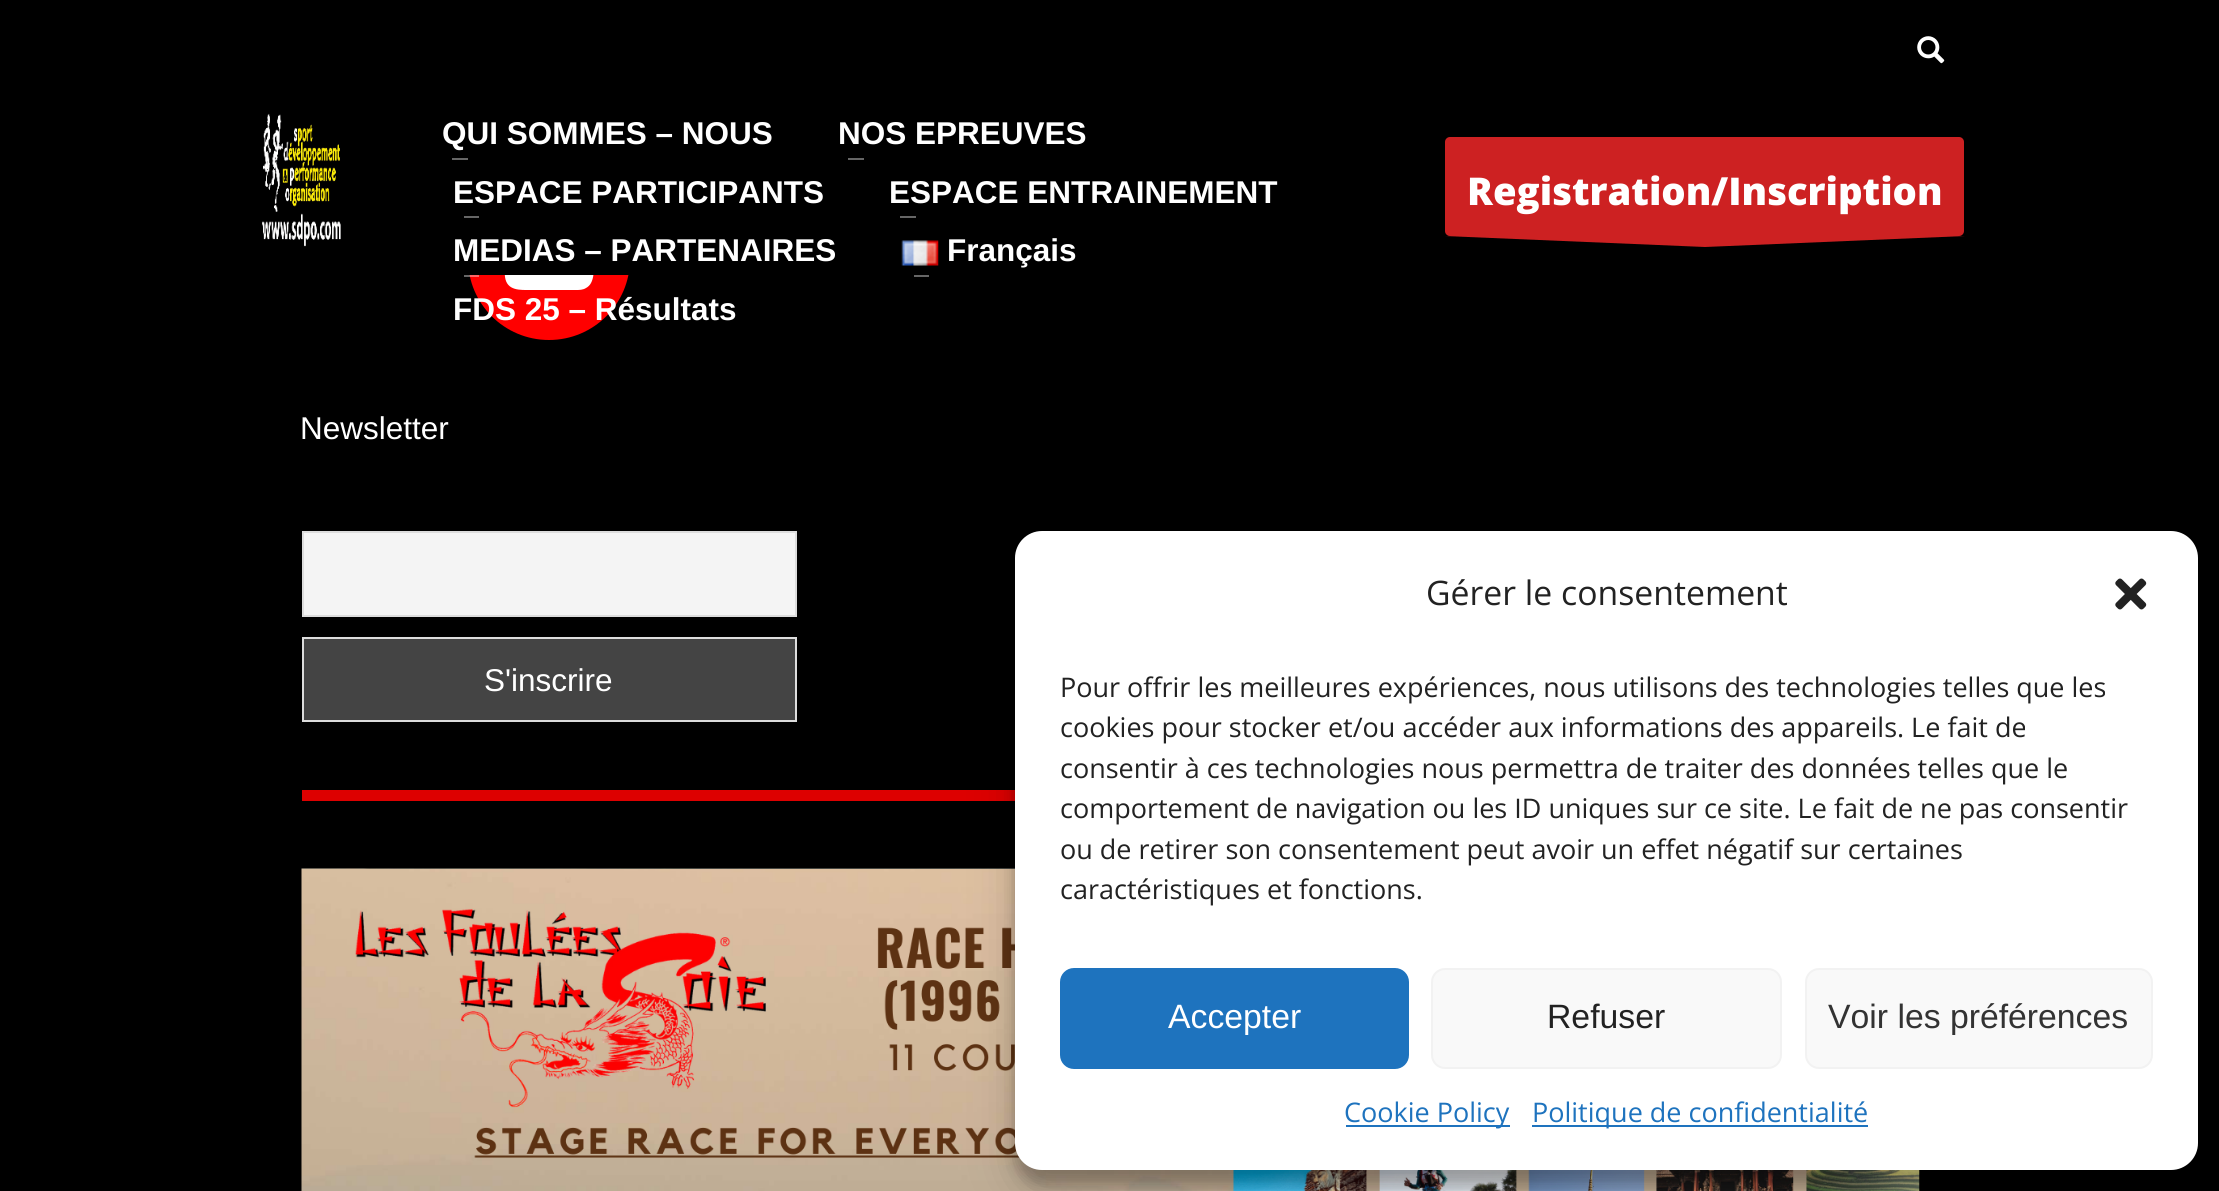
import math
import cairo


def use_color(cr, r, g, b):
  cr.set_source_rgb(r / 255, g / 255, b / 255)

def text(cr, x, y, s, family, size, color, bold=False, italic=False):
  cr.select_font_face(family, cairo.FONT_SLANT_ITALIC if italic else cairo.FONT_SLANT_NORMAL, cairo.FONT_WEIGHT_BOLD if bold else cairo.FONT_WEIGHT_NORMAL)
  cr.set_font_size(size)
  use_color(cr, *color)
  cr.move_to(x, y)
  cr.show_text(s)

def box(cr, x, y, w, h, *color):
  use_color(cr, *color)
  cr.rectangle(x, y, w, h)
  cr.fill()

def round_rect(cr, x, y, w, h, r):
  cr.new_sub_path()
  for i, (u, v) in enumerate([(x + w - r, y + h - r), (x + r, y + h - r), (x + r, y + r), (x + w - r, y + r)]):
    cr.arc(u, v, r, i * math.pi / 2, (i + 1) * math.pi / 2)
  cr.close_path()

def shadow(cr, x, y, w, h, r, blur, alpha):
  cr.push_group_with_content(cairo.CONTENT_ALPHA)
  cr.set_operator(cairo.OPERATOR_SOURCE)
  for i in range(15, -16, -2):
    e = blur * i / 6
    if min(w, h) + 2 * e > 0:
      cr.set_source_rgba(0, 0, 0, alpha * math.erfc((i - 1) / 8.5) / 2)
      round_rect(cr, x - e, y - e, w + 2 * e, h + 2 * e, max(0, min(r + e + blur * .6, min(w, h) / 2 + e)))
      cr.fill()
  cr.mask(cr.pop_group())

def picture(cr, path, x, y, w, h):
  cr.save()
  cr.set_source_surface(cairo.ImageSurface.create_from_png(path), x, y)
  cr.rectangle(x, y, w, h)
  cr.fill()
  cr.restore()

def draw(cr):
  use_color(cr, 0, 0, 0)
  cr.paint()
  use_color(cr, 255, 0, 0)
  cr.arc(549, 259, 81, 0, 2 * math.pi)
  cr.fill()
  use_color(cr, 255, 255, 255)
  cr.new_path()
  cr.move_to(593, 241)
  cr.curve_to(591, 227, 582, 228, 570, 227)
  cr.line_to(542, 227)
  cr.line_to(522, 228)
  cr.curve_to(519, 228, 515, 228, 512, 229)
  cr.curve_to(510, 230, 508, 232, 507, 234)
  cr.curve_to(502, 244, 504, 267, 505, 277)
  cr.curve_to(507, 291, 520, 290, 531, 290)
  cr.line_to(556, 290)
  cr.line_to(576, 290)
  cr.curve_to(579, 290, 583, 290, 586, 288)
  cr.curve_to(588, 287, 590, 285, 591, 283)
  cr.curve_to(596, 274, 594, 251, 593, 241)
  cr.close_path()
  cr.move_to(540, 270)
  cr.line_to(540, 245)
  cr.line_to(564, 258)
  cr.close_path()
  cr.fill()
  box(cr, 468, 178, 162, 97, 0, 0, 0)
  picture(cr, "img_01.png", 1917, 36, 28, 28)
  picture(cr, "img_02.png", 262, 113, 79, 134)
  box(cr, 452, 158, 16, 2, 102, 102, 102)
  box(cr, 848, 158, 16, 2, 102, 102, 102)
  box(cr, 464, 216, 15, 2, 102, 102, 102)
  box(cr, 900, 216, 16, 2, 102, 102, 102)
  cr.set_source_rgba(1, 1, 1, 0.4)
  cr.rectangle(464, 275, 15, 2)
  cr.fill()
  picture(cr, "img_03.png", 901, 240, 38, 26)
  box(cr, 914, 275, 15, 2, 102, 102, 102)
  use_color(cr, 205, 33, 34)
  round_rect(cr, 1445, 137, 519, 99, 5)
  cr.fill()
  cr.set_fill_rule(cairo.FILL_RULE_EVEN_ODD)
  cr.new_path()
  cr.move_to(1965, 236)
  cr.line_to(1705, 247)
  cr.line_to(1444, 236)
  cr.close_path()
  cr.fill()
  use_color(cr, 244, 244, 244)
  cr.rectangle(303, 532, 493, 84)
  cr.fill_preserve()
  use_color(cr, 221, 221, 221)
  cr.stroke()
  use_color(cr, 68, 68, 68)
  cr.rectangle(303, 638, 493, 83)
  cr.fill_preserve()
  use_color(cr, 221, 221, 221)
  cr.stroke()
  box(cr, 302, 790, 713, 11, 221, 0, 0)
  picture(cr, "img_04.png", 301, 868, 1619, 323)
  use_color(cr, 0, 0, 0)
  shadow(cr, 1015, 545, 1183, 639, 27, 7, 0.23)
  shadow(cr, 1015, 554, 1183, 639, 27, 22.5, 0.19)
  use_color(cr, 255, 255, 255)
  round_rect(cr, 1015, 531, 1183, 639, 27)
  cr.fill()
  picture(cr, "img_05.png", 2115, 578, 32, 32)
  use_color(cr, 30, 115, 190)
  round_rect(cr, 1061, 969, 347, 99, 13)
  cr.fill_preserve()
  cr.stroke()
  use_color(cr, 249, 249, 249)
  round_rect(cr, 1432, 969, 349, 99, 13)
  cr.fill_preserve()
  use_color(cr, 242, 242, 242)
  cr.stroke()
  use_color(cr, 249, 249, 249)
  round_rect(cr, 1806, 969, 346, 99, 13)
  cr.fill_preserve()
  use_color(cr, 242, 242, 242)
  cr.stroke()
  box(cr, 1346, 1125, 164, 2, 30, 115, 190)
  box(cr, 1532, 1125, 336, 2, 30, 115, 190)
  text(cr, 442, 144, "QUI SOMMES – NOUS", "Liberation Sans", 31.5, (255, 255, 255), bold=True)
  text(cr, 838, 144, "NOS EPREUVES", "Liberation Sans", 31.5, (255, 255, 255), bold=True)
  text(cr, 453, 203, "ESPACE PARTICIPANTS", "Liberation Sans", 31.5, (255, 255, 255), bold=True)
  text(cr, 889, 203, "ESPACE ENTRAINEMENT", "Liberation Sans", 31.5, (255, 255, 255), bold=True)
  text(cr, 453, 261, "MEDIAS – PARTENAIRES", "Liberation Sans", 31.5, (255, 255, 255), bold=True)
  text(cr, 947, 261, "Français", "Liberation Sans", 31.5, (255, 255, 255), bold=True)
  text(cr, 453, 320, "FDS 25 – Résultats", "Liberation Sans", 31.5, (255, 255, 255), bold=True)
  text(cr, 1467, 205, "Registration/Inscription", "Open Sans ExtraBold", 38.25, (255, 255, 255))
  text(cr, 300, 439, "Newsletter", "Liberation Sans", 31.5, (255, 255, 255))
  text(cr, 484, 691, "S'inscrire", "Liberation Sans", 31.5, (255, 255, 255))
  text(cr, 1426, 605, "Gérer le consentement", "Open Sans", 33.75, (34, 34, 34))
  text(cr, 1060, 697, "Pour offrir les meilleures expériences, nous utilisons des technologies telles que les", "Open Sans", 27, (34, 34, 34))
  text(cr, 1060, 737, "cookies pour stocker et/ou accéder aux informations des appareils. Le fait de", "Open Sans", 27, (34, 34, 34))
  text(cr, 1060, 778, "consentir à ces technologies nous permettra de traiter des données telles que le", "Open Sans", 27, (34, 34, 34))
  text(cr, 1060, 818, "comportement de navigation ou les ID uniques sur ce site. Le fait de ne pas consentir", "Open Sans", 27, (34, 34, 34))
  text(cr, 1060, 859, "ou de retirer son consentement peut avoir un effet négatif sur certaines", "Open Sans", 27, (34, 34, 34))
  text(cr, 1060, 899, "caractéristiques et fonctions.", "Open Sans", 27, (34, 34, 34))
  text(cr, 1168, 1028, "Accepter", "Liberation Sans", 33.75, (255, 255, 255))
  text(cr, 1547, 1028, "Refuser", "Liberation Sans", 33.75, (34, 34, 34))
  text(cr, 1828, 1028, "Voir les préférences", "Liberation Sans", 33.75, (51, 51, 51))
  text(cr, 1344, 1122, "Cookie Policy", "Open Sans", 27, (30, 115, 190))
  text(cr, 1532, 1122, "Politique de confidentialité", "Open Sans", 27, (30, 115, 190))


surface = cairo.ImageSurface(cairo.FORMAT_RGB24, 2219, 1191)
cr = cairo.Context(surface)
options = cairo.FontOptions()
options.set_hint_metrics(cairo.HINT_METRICS_OFF)
options.set_hint_style(cairo.HINT_STYLE_NONE)
cr.set_font_options(options)
cr.set_miter_limit(4)
draw(cr)
surface.write_to_png("out.png")
